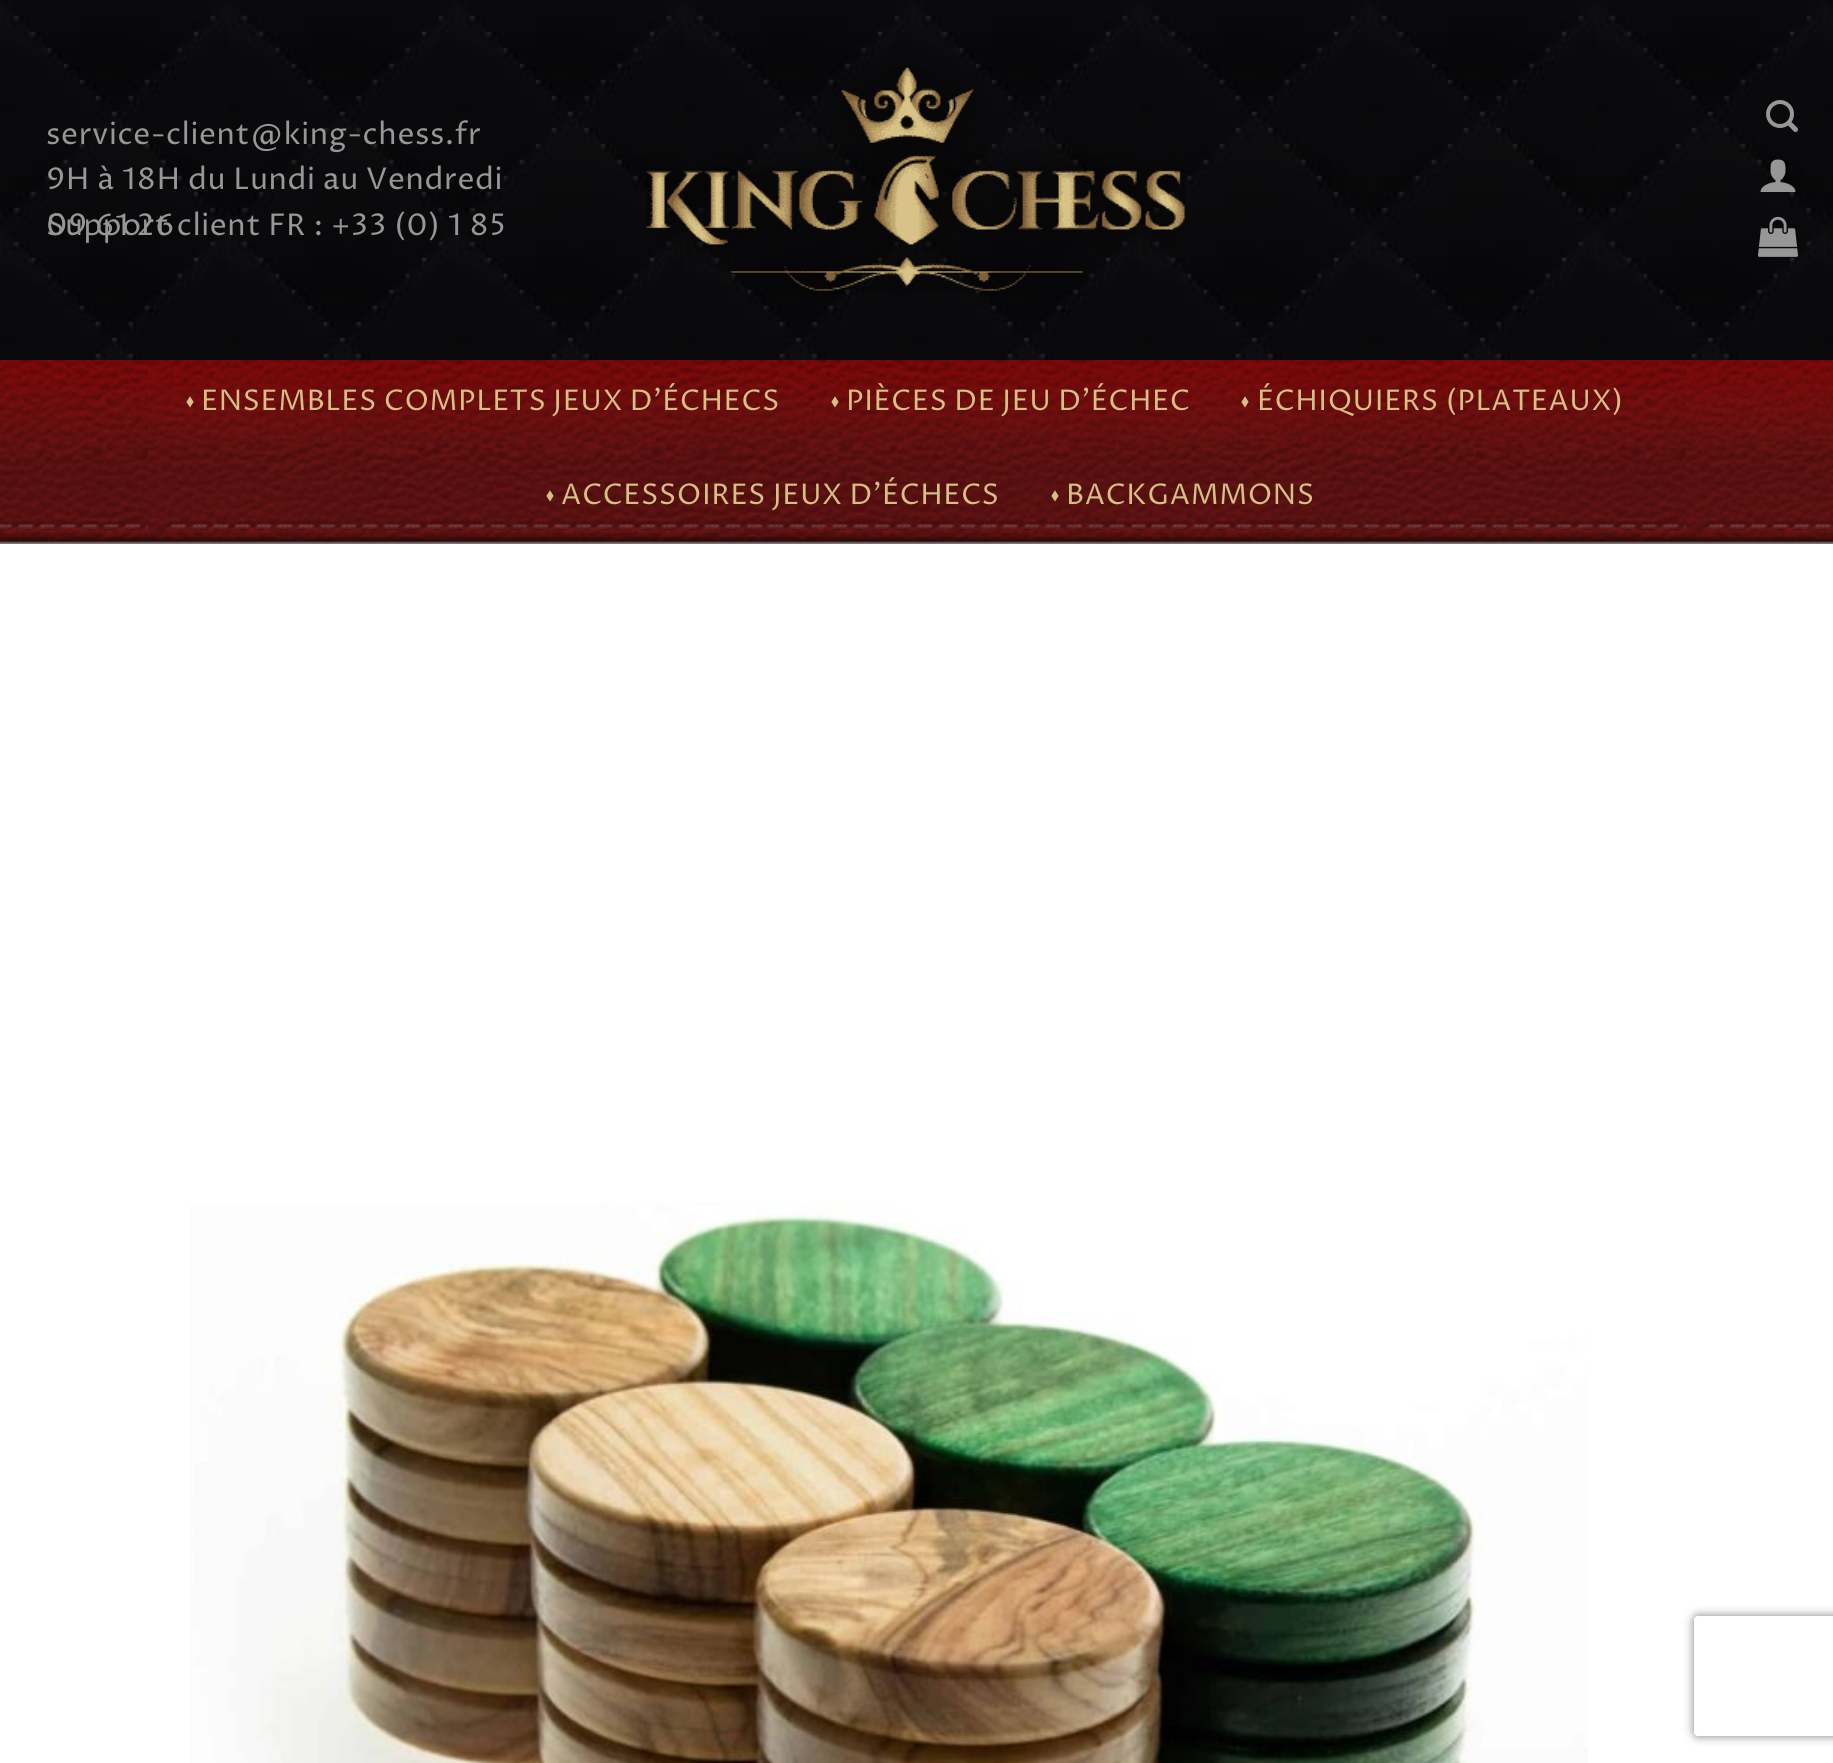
import math
import cairo


def use_color(cr, r, g, b):
  cr.set_source_rgb(r / 255, g / 255, b / 255)

def spaced_text(cr, x, y, s, letter, word):
  cr.move_to(x, y)
  for ch in s:
    cr.show_text(ch)
    cr.rel_move_to(letter + word * (ch == ' '), 0)

def round_rect(cr, x, y, w, h, r):
  cr.new_sub_path()
  for i, (u, v) in enumerate([(x + w - r, y + h - r), (x + r, y + h - r), (x + r, y + r), (x + w - r, y + r)]):
    cr.arc(u, v, r, i * math.pi / 2, (i + 1) * math.pi / 2)
  cr.close_path()

def shadow(cr, x, y, w, h, r, blur, alpha):
  cr.push_group_with_content(cairo.CONTENT_ALPHA)
  cr.set_operator(cairo.OPERATOR_SOURCE)
  for i in range(15, -16, -2):
    e = blur * i / 6
    if min(w, h) + 2 * e > 0:
      cr.set_source_rgba(0, 0, 0, alpha * math.erfc((i - 1) / 8.5) / 2)
      round_rect(cr, x - e, y - e, w + 2 * e, h + 2 * e, max(0, min(r + e + blur * .6, min(w, h) / 2 + e)))
      cr.fill()
  cr.mask(cr.pop_group())

def picture(cr, path, x, y, w, h):
  cr.save()
  cr.set_source_surface(cairo.ImageSurface.create_from_png(path), x, y)
  cr.rectangle(x, y, w, h)
  cr.fill()
  cr.restore()

def draw(cr):
  use_color(cr, 255, 255, 255)
  cr.paint()
  picture(cr, "img_01.png", 0, 0, 1833, 360)
  picture(cr, "img_02.png", 646, 67, 539, 227)
  picture(cr, "img_03.png", 1766, 100, 32, 32)
  picture(cr, "img_04.png", 1760, 159, 36, 33)
  picture(cr, "img_05.png", 1758, 216, 40, 41)
  picture(cr, "img_06.png", 0, 360, 1833, 184)
  picture(cr, "img_07.png", 190, 1202, 1398, 561)
  cr.save()
  cr.set_fill_rule(cairo.FILL_RULE_EVEN_ODD)
  cr.new_path()
  cr.move_to(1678, 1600)
  cr.line_to(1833, 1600)
  cr.line_to(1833, 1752)
  cr.line_to(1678, 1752)
  cr.close_path()
  cr.move_to(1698, 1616)
  cr.line_to(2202, 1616)
  cr.curve_to(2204, 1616, 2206, 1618, 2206, 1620)
  cr.line_to(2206, 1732)
  cr.curve_to(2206, 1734, 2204, 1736, 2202, 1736)
  cr.line_to(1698, 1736)
  cr.curve_to(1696, 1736, 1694, 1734, 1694, 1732)
  cr.line_to(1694, 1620)
  cr.curve_to(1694, 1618, 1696, 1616, 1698, 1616)
  cr.close_path()
  cr.clip()
  use_color(cr, 128, 128, 128)
  shadow(cr, 1694, 1616, 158, 120, 4, 5, 1)
  cr.restore()
  cr.select_font_face("Proza Libre")
  cr.set_font_size(30)
  use_color(cr, 151, 151, 151)
  spaced_text(cr, 46, 144, "service-client@king-chess.fr", 0.6, 0)
  spaced_text(cr, 46, 189, "9H à 18H du Lundi au Vendredi", 0.6, 0)
  spaced_text(cr, 46, 235, "Support client FR : +33 (0) 1 85", 0.6, 0)
  spaced_text(cr, 46, 235, "09 61 26", 0.6, 0)
  cr.select_font_face("FreeSans")
  cr.set_font_size(28.5)
  use_color(cr, 214, 192, 133)
  spaced_text(cr, 186, 410, "⬪", 0.6, 0)
  cr.select_font_face("Proza Libre")
  spaced_text(cr, 201, 410, "ENSEMBLES COMPLETS JEUX D’ÉCHECS", 0.6, 0)
  cr.select_font_face("FreeSans")
  spaced_text(cr, 831, 410, "⬪", 0.6, 0)
  cr.select_font_face("Proza Libre")
  spaced_text(cr, 846, 410, "PIÈCES DE JEU D’ÉCHEC", 0.6, 0)
  cr.select_font_face("FreeSans")
  spaced_text(cr, 1241, 410, "⬪", 0.6, 0)
  cr.select_font_face("Proza Libre")
  spaced_text(cr, 1257, 410, "ÉCHIQUIERS (PLATEAUX)", 0.6, 0)
  cr.select_font_face("FreeSans")
  spaced_text(cr, 546, 504, "⬪", 0.6, 0)
  cr.select_font_face("Proza Libre")
  spaced_text(cr, 561, 504, "ACCESSOIRES JEUX D’ÉCHECS", 0.6, 0)
  cr.select_font_face("FreeSans")
  spaced_text(cr, 1051, 504, "⬪", 0.6, 0)
  cr.select_font_face("Proza Libre")
  spaced_text(cr, 1066, 504, "BACKGAMMONS", 0.6, 0)


surface = cairo.ImageSurface(cairo.FORMAT_RGB24, 1833, 1763)
cr = cairo.Context(surface)
options = cairo.FontOptions()
options.set_hint_metrics(cairo.HINT_METRICS_OFF)
options.set_hint_style(cairo.HINT_STYLE_NONE)
cr.set_font_options(options)
cr.set_miter_limit(4)
draw(cr)
surface.write_to_png("out.png")
